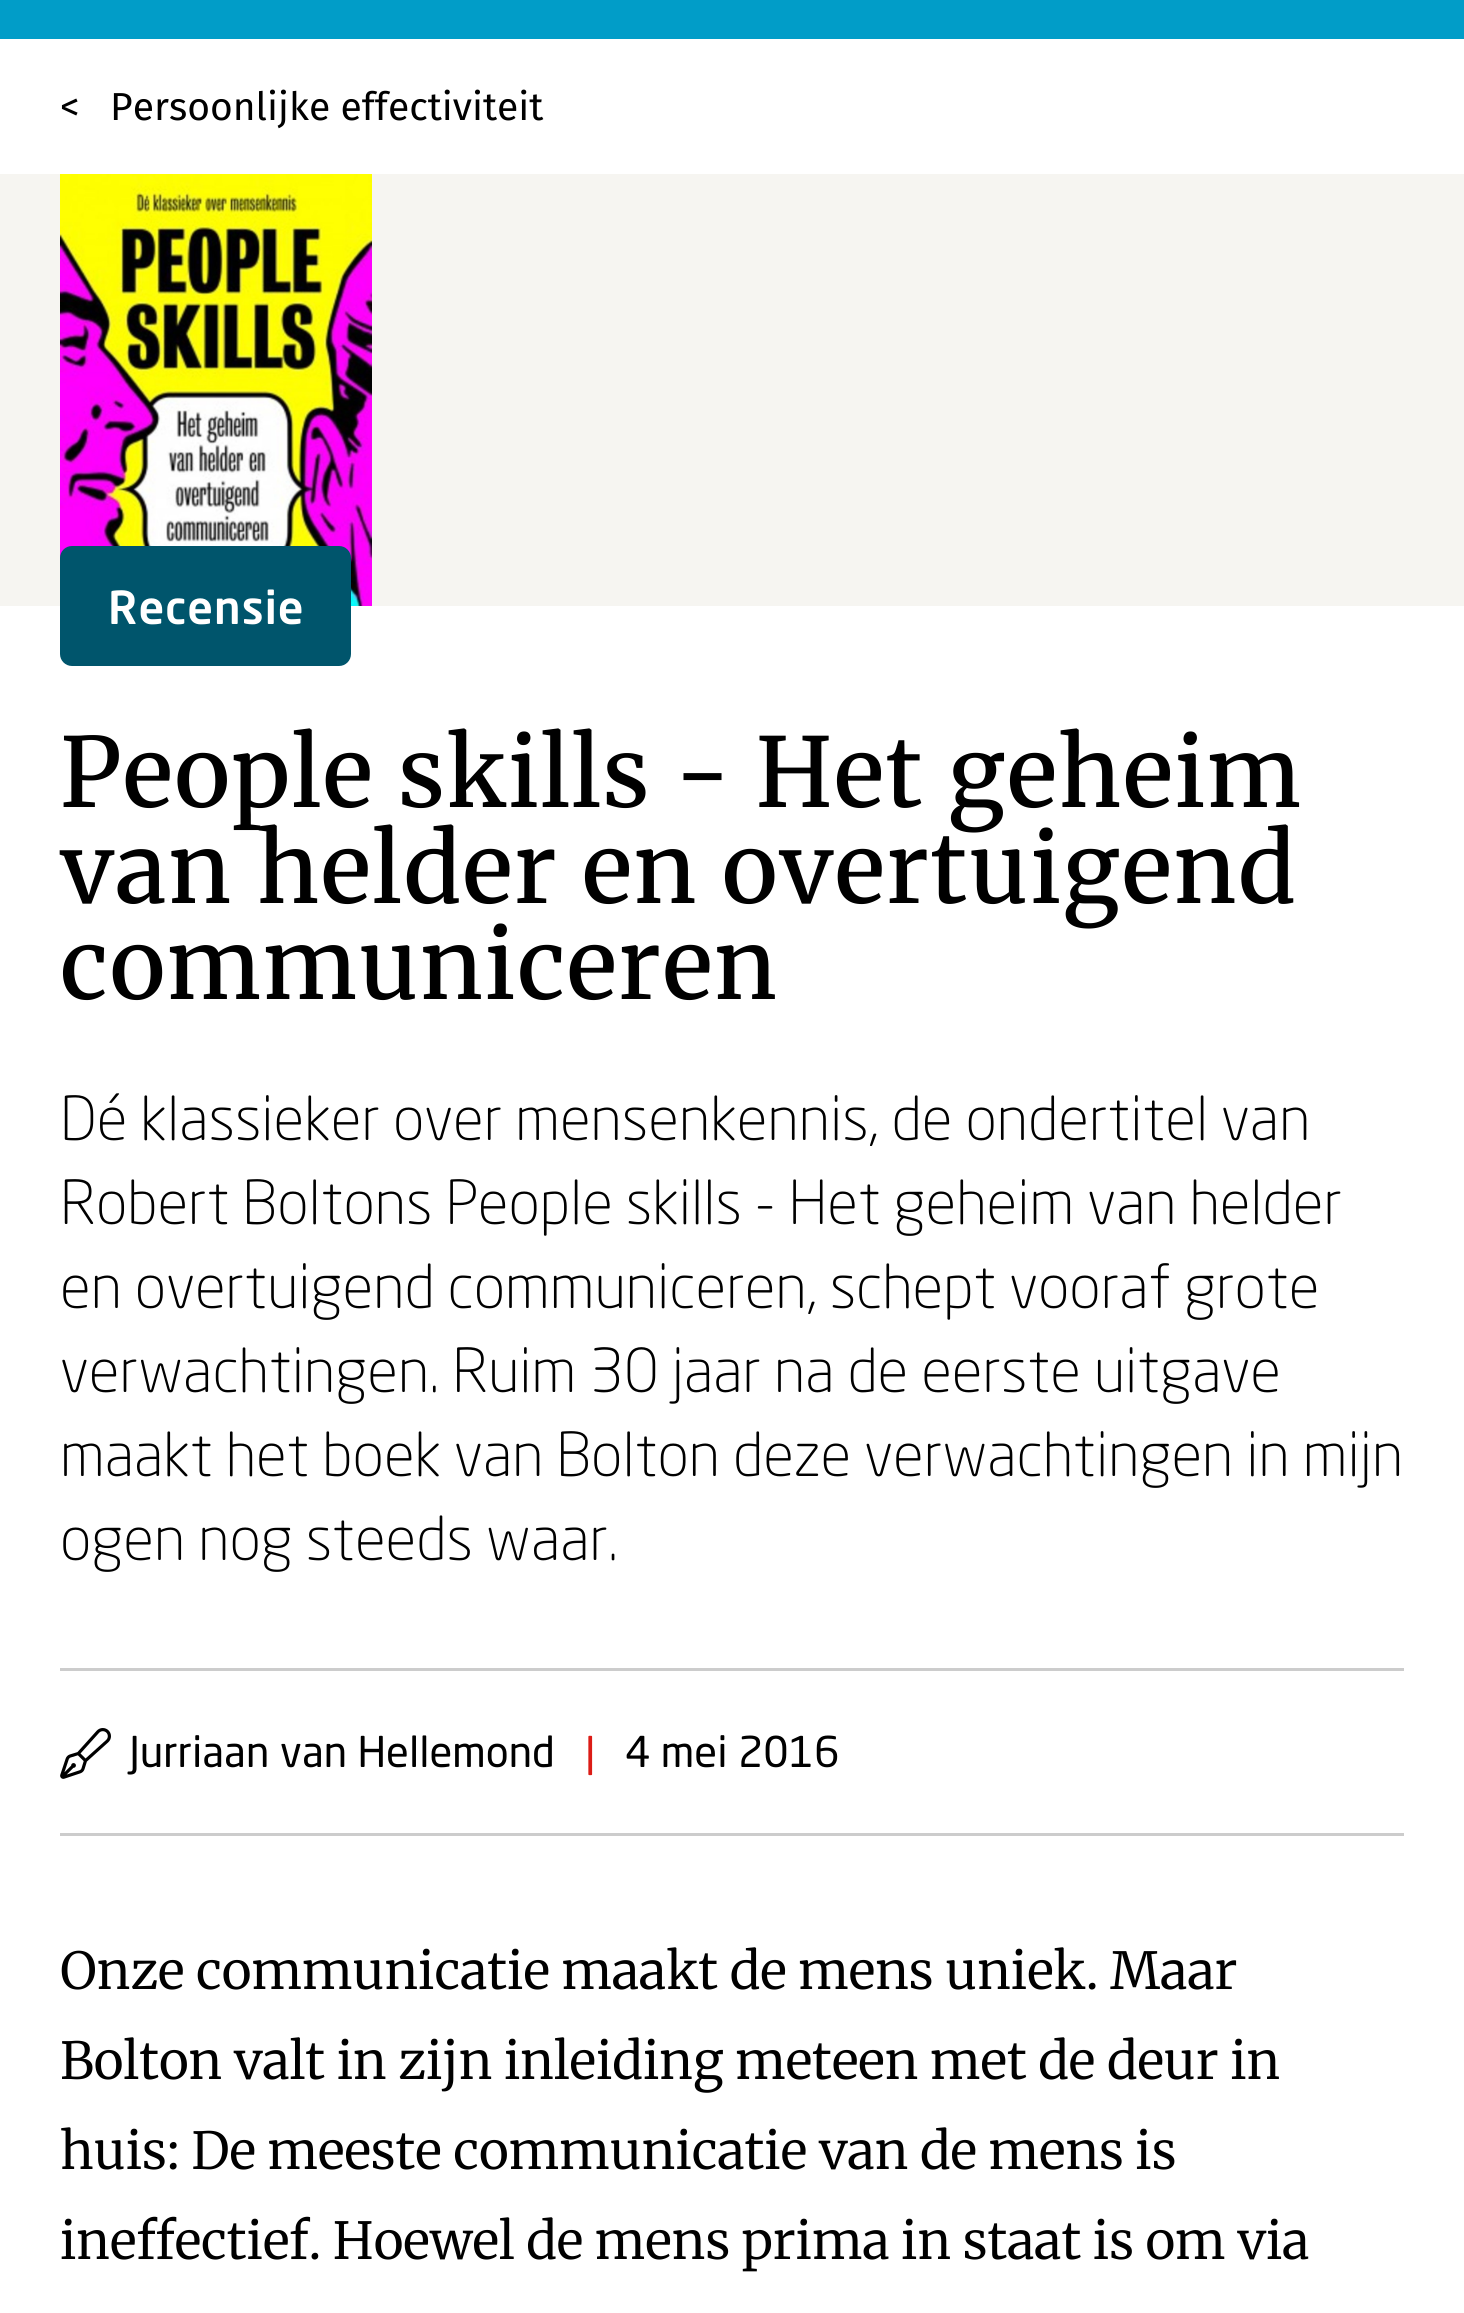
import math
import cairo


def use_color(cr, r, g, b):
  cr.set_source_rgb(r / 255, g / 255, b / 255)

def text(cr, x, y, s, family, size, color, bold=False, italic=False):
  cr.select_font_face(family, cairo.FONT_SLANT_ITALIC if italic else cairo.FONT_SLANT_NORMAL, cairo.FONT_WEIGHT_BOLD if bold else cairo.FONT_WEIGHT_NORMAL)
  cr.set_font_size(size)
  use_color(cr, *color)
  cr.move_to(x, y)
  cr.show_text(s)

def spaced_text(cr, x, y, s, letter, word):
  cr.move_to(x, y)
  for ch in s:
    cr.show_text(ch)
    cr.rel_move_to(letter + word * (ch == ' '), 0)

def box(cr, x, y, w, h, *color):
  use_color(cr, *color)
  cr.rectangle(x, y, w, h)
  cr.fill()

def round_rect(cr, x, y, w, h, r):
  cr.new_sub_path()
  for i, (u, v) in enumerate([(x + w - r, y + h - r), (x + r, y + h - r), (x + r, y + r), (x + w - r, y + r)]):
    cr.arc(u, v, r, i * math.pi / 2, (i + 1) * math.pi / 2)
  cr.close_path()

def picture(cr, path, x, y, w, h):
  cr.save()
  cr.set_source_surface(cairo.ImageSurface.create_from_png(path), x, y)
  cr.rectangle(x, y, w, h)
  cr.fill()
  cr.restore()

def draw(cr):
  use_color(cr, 255, 255, 255)
  cr.paint()
  box(cr, 0, 0, 1464, 39, 1, 157, 200)
  box(cr, 0, 174, 1464, 432, 246, 245, 241)
  picture(cr, "img_01.png", 60, 174, 312, 432)
  use_color(cr, 0, 85, 108)
  round_rect(cr, 60, 546, 291, 120, 12)
  cr.fill()
  box(cr, 60, 1668, 1344, 3, 204, 204, 204)
  box(cr, 60, 1833, 1344, 3, 204, 204, 204)
  picture(cr, "img_02.png", 60, 1728, 51, 51)
  text(cr, 60, 120, "<", "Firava", 39, (0, 0, 0))
  text(cr, 110, 120, "Persoonlijke effectiviteit", "Firava", 39, (0, 0, 0))
  cr.select_font_face("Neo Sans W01 Medium")
  cr.set_font_size(45)
  use_color(cr, 255, 255, 255)
  spaced_text(cr, 108, 624, "Recensie", 1, 0)
  cr.select_font_face("Merriweather Medium")
  cr.set_font_size(96)
  use_color(cr, 0, 0, 0)
  spaced_text(cr, 60, 807, "People skills - Het geheim", 1.9, 0)
  spaced_text(cr, 60, 903, "van helder en overtuigend", 1.9, 0)
  spaced_text(cr, 60, 999, "communiceren", 1.9, 0)
  text(cr, 60, 1140, "Dé klassieker over mensenkennis, de ondertitel van", "Neo Sans W01 Light", 60, (0, 0, 0))
  text(cr, 60, 1224, "Robert Boltons People skills - Het geheim van helder", "Neo Sans W01 Light", 60, (0, 0, 0))
  text(cr, 60, 1308, "en overtuigend communiceren, schept vooraf grote", "Neo Sans W01 Light", 60, (0, 0, 0))
  text(cr, 60, 1392, "verwachtingen. Ruim 30 jaar na de eerste uitgave", "Neo Sans W01 Light", 60, (0, 0, 0))
  text(cr, 60, 1476, "maakt het boek van Bolton deze verwachtingen in mijn", "Neo Sans W01 Light", 60, (0, 0, 0))
  text(cr, 60, 1560, "ogen nog steeds waar.", "Neo Sans W01 Light", 60, (0, 0, 0))
  text(cr, 129, 1767, "Jurriaan van Hellemond", "Neo Sans W01", 42, (0, 0, 0))
  text(cr, 585, 1767, "|", "Neo Sans W01", 42, (220, 28, 22))
  text(cr, 625, 1767, "4 mei 2016", "Neo Sans W01", 42, (0, 0, 0))
  cr.select_font_face("Merriweather")
  cr.set_font_size(51)
  spaced_text(cr, 60, 1989, "Onze communicatie maakt de mens uniek. Maar", 0, -0.5)
  spaced_text(cr, 60, 2079, "Bolton valt in zijn inleiding meteen met de deur in", 0, -0.5)
  spaced_text(cr, 60, 2169, "huis: De meeste communicatie van de mens is", 0, -0.5)
  spaced_text(cr, 60, 2259, "ineffectief. Hoewel de mens prima in staat is om via", 0, -0.5)


surface = cairo.ImageSurface(cairo.FORMAT_RGB24, 1464, 2313)
cr = cairo.Context(surface)
options = cairo.FontOptions()
options.set_hint_metrics(cairo.HINT_METRICS_OFF)
options.set_hint_style(cairo.HINT_STYLE_NONE)
cr.set_font_options(options)
cr.set_miter_limit(4)
draw(cr)
surface.write_to_png("out.png")
